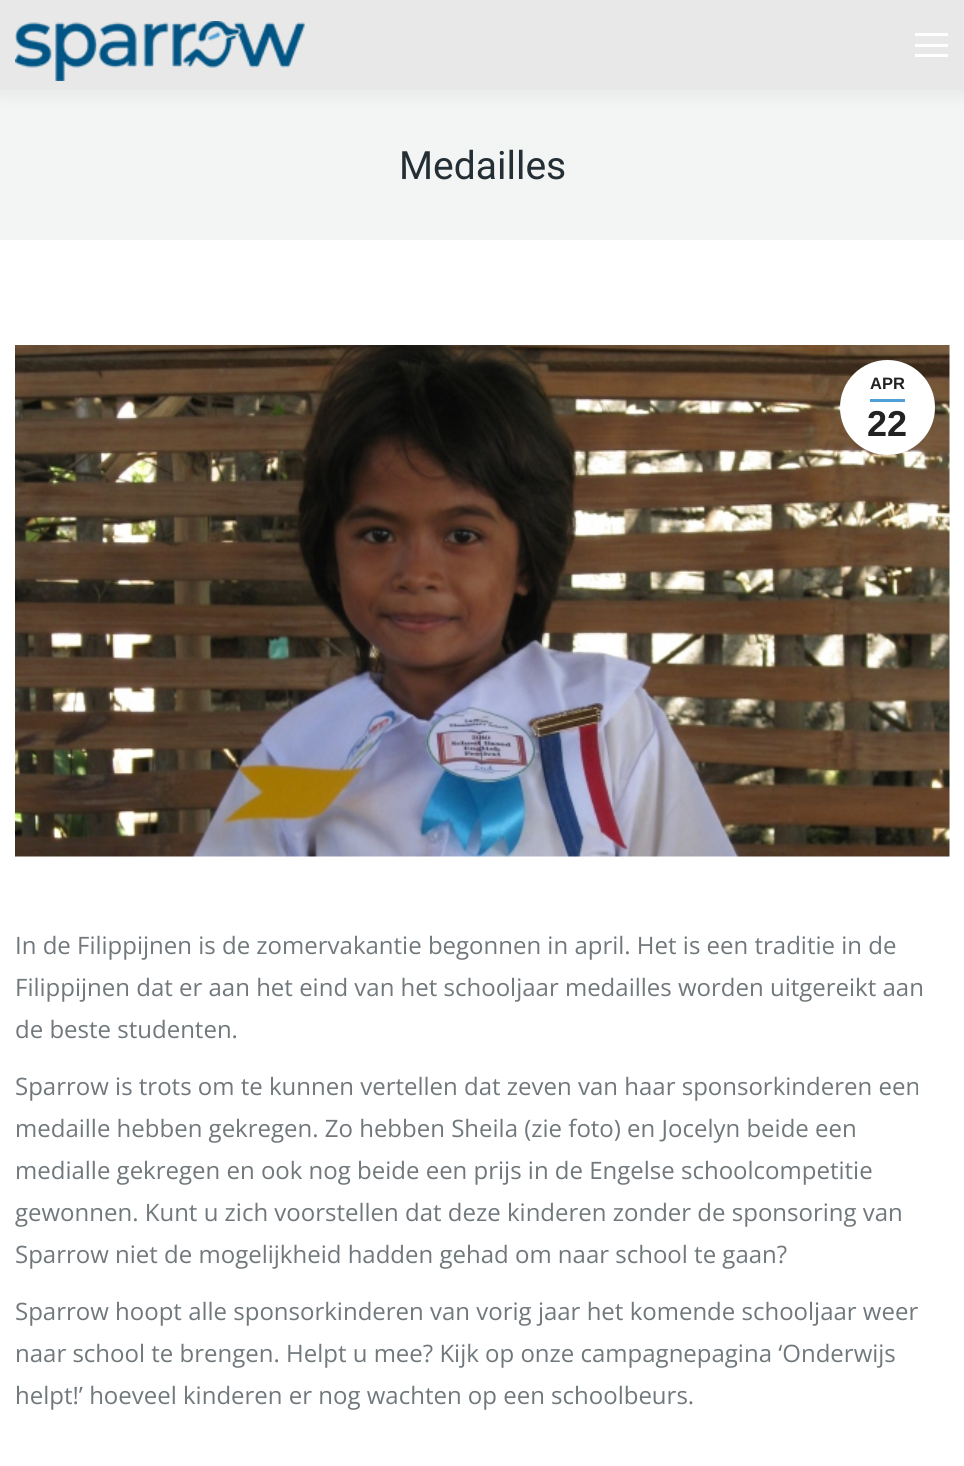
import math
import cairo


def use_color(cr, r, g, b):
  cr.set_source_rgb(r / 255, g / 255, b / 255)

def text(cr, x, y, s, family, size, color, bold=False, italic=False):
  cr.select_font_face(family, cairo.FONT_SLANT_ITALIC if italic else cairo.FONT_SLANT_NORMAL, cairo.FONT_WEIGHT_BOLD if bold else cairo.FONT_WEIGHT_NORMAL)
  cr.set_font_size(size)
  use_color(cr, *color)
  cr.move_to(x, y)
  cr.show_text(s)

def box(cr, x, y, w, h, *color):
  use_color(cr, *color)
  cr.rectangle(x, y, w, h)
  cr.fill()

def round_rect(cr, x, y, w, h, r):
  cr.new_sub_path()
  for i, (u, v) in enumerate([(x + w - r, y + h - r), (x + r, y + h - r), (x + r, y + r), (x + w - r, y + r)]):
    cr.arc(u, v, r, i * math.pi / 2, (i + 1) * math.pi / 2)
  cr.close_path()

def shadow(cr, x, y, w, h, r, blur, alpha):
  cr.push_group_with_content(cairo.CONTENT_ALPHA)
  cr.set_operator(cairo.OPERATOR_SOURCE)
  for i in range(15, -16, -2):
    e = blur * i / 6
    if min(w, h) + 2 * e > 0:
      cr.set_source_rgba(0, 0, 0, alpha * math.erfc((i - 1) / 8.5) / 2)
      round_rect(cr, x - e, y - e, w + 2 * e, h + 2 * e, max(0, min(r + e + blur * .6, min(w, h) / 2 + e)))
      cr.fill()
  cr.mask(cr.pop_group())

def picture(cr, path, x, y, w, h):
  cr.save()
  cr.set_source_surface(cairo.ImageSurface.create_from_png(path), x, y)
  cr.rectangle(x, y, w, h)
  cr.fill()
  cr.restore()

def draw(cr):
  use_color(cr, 255, 255, 255)
  cr.paint()
  box(cr, 0, 90, 964, 150, 243, 244, 244)
  use_color(cr, 0, 0, 0)
  shadow(cr, -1, -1, 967, 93, 0, 11, 0.07)
  box(cr, 0, 0, 964, 90, 232, 232, 232)
  picture(cr, "img_01.png", 15, 21, 290, 60)
  box(cr, 915, 33, 33, 3, 255, 255, 255)
  box(cr, 915, 44, 33, 3, 255, 255, 255)
  box(cr, 915, 54, 33, 3, 255, 255, 255)
  picture(cr, "img_02.png", 15, 345, 935, 512)
  cr.arc(887.5, 407.5, 47.5, 0, 2 * math.pi)
  cr.fill()
  box(cr, 870, 399, 35, 3, 79, 160, 216)
  text(cr, 399, 179, "Medailles", "Roboto", 39, (36, 46, 53))
  text(cr, 870, 389, "APR", "Liberation Sans", 16.5, (34, 34, 34), bold=True)
  text(cr, 867, 436, "22", "Liberation Sans", 36, (34, 34, 34), bold=True)
  text(cr, 15, 954, "In de Filippijnen is de zomervakantie begonnen in april. Het is een traditie in de", "Open Sans", 24, (113, 120, 124))
  text(cr, 15, 996, "Filippijnen dat er aan het eind van het schooljaar medailles worden uitgereikt aan", "Open Sans", 24, (113, 120, 124))
  text(cr, 15, 1038, "de beste studenten.", "Open Sans", 24, (113, 120, 124))
  text(cr, 15, 1095, "Sparrow is trots om te kunnen vertellen dat zeven van haar sponsorkinderen een", "Open Sans", 24, (113, 120, 124))
  text(cr, 15, 1137, "medaille hebben gekregen. Zo hebben Sheila (zie foto) en Jocelyn beide een", "Open Sans", 24, (113, 120, 124))
  text(cr, 15, 1179, "medialle gekregen en ook nog beide een prijs in de Engelse schoolcompetitie", "Open Sans", 24, (113, 120, 124))
  text(cr, 15, 1221, "gewonnen. Kunt u zich voorstellen dat deze kinderen zonder de sponsoring van", "Open Sans", 24, (113, 120, 124))
  text(cr, 15, 1263, "Sparrow niet de mogelijkheid hadden gehad om naar school te gaan?", "Open Sans", 24, (113, 120, 124))
  text(cr, 15, 1320, "Sparrow hoopt alle sponsorkinderen van vorig jaar het komende schooljaar weer", "Open Sans", 24, (113, 120, 124))
  text(cr, 15, 1362, "naar school te brengen. Helpt u mee? Kijk op onze campagnepagina ‘Onderwijs", "Open Sans", 24, (113, 120, 124))
  text(cr, 15, 1404, "helpt!’ hoeveel kinderen er nog wachten op een schoolbeurs.", "Open Sans", 24, (113, 120, 124))


surface = cairo.ImageSurface(cairo.FORMAT_RGB24, 964, 1466)
cr = cairo.Context(surface)
options = cairo.FontOptions()
options.set_hint_metrics(cairo.HINT_METRICS_OFF)
options.set_hint_style(cairo.HINT_STYLE_NONE)
cr.set_font_options(options)
cr.set_miter_limit(4)
draw(cr)
surface.write_to_png("out.png")
